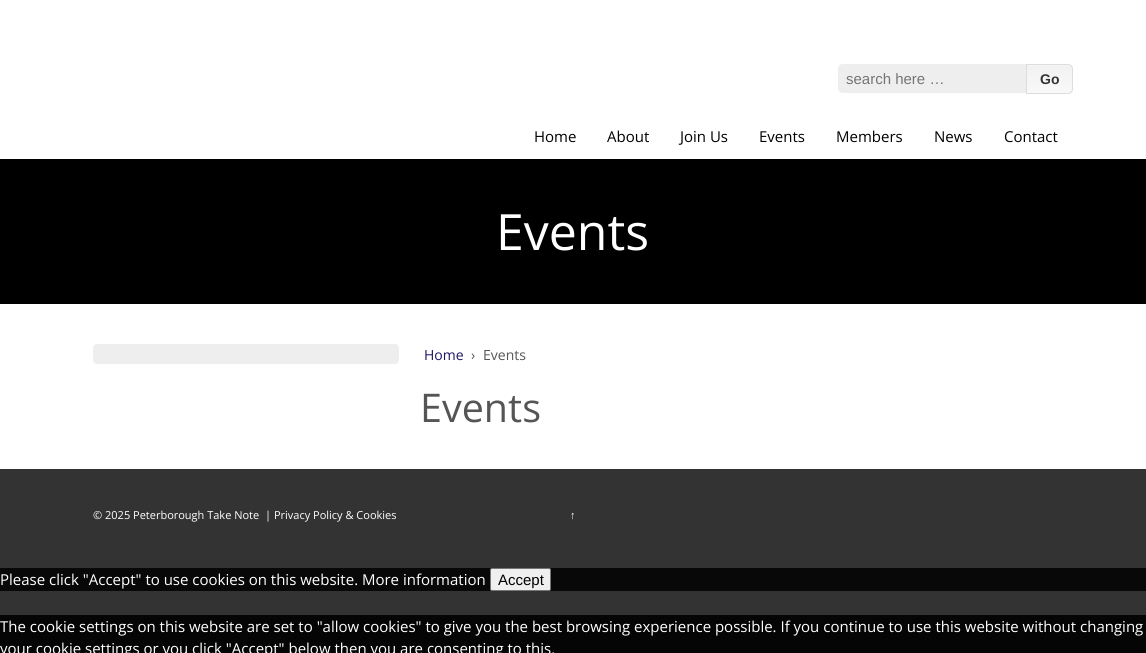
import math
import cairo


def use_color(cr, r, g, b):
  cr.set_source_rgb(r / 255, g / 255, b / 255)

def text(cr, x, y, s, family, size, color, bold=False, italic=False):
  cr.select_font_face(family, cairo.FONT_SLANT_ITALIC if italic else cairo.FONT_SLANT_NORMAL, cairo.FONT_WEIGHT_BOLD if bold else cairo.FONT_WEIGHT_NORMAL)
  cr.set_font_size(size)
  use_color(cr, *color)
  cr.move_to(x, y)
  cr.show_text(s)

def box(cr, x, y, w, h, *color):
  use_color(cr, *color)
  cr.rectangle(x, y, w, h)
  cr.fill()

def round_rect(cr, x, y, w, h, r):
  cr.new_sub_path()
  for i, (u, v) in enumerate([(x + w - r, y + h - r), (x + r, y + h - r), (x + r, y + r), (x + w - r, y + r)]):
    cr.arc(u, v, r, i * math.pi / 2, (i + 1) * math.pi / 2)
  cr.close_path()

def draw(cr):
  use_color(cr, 255, 255, 255)
  cr.paint()
  use_color(cr, 238, 238, 238)
  cr.new_path()
  cr.move_to(843, 64)
  cr.line_to(1026, 64)
  cr.line_to(1026, 93)
  cr.line_to(843, 93)
  cr.curve_to(840, 93, 838, 91, 838, 88)
  cr.line_to(838, 69)
  cr.curve_to(838, 66, 840, 64, 843, 64)
  cr.close_path()
  cr.fill()
  cr.save()
  cr.new_path()
  cr.move_to(1026, 64)
  cr.line_to(1068, 64)
  cr.curve_to(1071, 64, 1073, 66, 1073, 69)
  cr.line_to(1073, 89)
  cr.curve_to(1073, 92, 1071, 94, 1068, 94)
  cr.line_to(1026, 94)
  cr.close_path()
  cr.clip()
  gradient = cairo.LinearGradient(1050, 93, 1050, 65)
  gradient.add_color_stop_rgba(0, 0.976, 0.976, 0.976, 1)
  gradient.add_color_stop_rgba(1, 0.945, 0.945, 0.945, 1)
  cr.set_source(gradient)
  cr.rectangle(1027, 65, 46, 28)
  cr.fill()
  cr.restore()
  use_color(cr, 245, 245, 245)
  cr.new_path()
  cr.move_to(1027, 66)
  cr.line_to(1061, 66)
  cr.curve_to(1069, 66, 1071, 66, 1072, 69)
  cr.curve_to(1072, 67, 1070, 65, 1068, 65)
  cr.line_to(1027, 65)
  cr.close_path()
  cr.fill()
  cr.new_path()
  cr.move_to(1026.5, 64.5)
  cr.line_to(1068, 64.5)
  cr.curve_to(1070.5, 64.5, 1072.5, 66.5, 1072.5, 69)
  cr.line_to(1072.5, 89)
  cr.curve_to(1072.5, 91.5, 1070.5, 93.5, 1068, 93.5)
  cr.line_to(1026.5, 93.5)
  cr.close_path()
  use_color(cr, 221, 221, 221)
  cr.set_line_width(1)
  cr.stroke()
  box(cr, 0, 159, 1146, 145, 0, 0, 0)
  use_color(cr, 238, 238, 238)
  round_rect(cr, 93, 344, 306, 20, 4)
  cr.fill()
  box(cr, 0, 469, 1146, 146, 51, 51, 51)
  box(cr, 0, 568, 1146, 23, 8, 8, 8)
  use_color(cr, 239, 239, 239)
  round_rect(cr, 490.5, 568.5, 60, 22, 1.5)
  cr.fill_preserve()
  use_color(cr, 118, 118, 118)
  cr.stroke()
  box(cr, 0, 615, 1146, 38, 5, 5, 5)
  text(cr, 846, 84, "search here …", "Liberation Sans", 15, (117, 117, 117))
  text(cr, 1040, 84, "Go", "Liberation Sans", 14, (51, 51, 51), bold=True)
  text(cr, 534, 142, "Home", "Open Sans", 15, (0, 0, 0))
  text(cr, 607, 142, "About", "Open Sans", 15, (0, 0, 0))
  text(cr, 680, 142, "Join Us", "Open Sans", 15, (0, 0, 0))
  text(cr, 759, 142, "Events", "Open Sans", 15, (0, 0, 0))
  text(cr, 836, 142, "Members", "Open Sans", 15, (0, 0, 0))
  text(cr, 934, 142, "News", "Open Sans", 15, (0, 0, 0))
  text(cr, 1004, 142, "Contact", "Open Sans", 15, (0, 0, 0))
  text(cr, 496, 250, "Events", "Open Sans", 50, (255, 255, 255))
  text(cr, 424, 360, "Home", "Open Sans", 14, (27, 20, 100))
  text(cr, 471, 360, "›", "Open Sans", 14, (85, 85, 85))
  text(cr, 483, 360, "Events", "Open Sans", 14, (85, 85, 85))
  text(cr, 420, 422, "Events", "Open Sans", 39.5, (85, 85, 85))
  text(cr, 93, 519, "© 2025 Peterborough Take Note", "Open Sans", 11, (255, 255, 255))
  text(cr, 265, 519, "| Privacy Policy & Cookies", "Open Sans", 11, (255, 255, 255))
  text(cr, 570, 519, "↑", "Liberation Sans", 11, (255, 255, 255))
  text(cr, 0, 585, "Please click \"Accept\" to use cookies on this website. More information", "Open Sans", 15, (255, 255, 255))
  text(cr, 498, 585, "Accept", "Liberation Sans", 15, (0, 0, 0))
  text(cr, 0, 632, "The cookie settings on this website are set to \"allow cookies\" to give you the best browsing experience possible. If you continue to use this website without changing", "Open Sans", 15, (255, 255, 255))
  text(cr, 0, 654, "your cookie settings or you click \"Accept\" below then you are consenting to this.", "Open Sans", 15, (255, 255, 255))


surface = cairo.ImageSurface(cairo.FORMAT_RGB24, 1146, 653)
cr = cairo.Context(surface)
options = cairo.FontOptions()
options.set_hint_metrics(cairo.HINT_METRICS_OFF)
options.set_hint_style(cairo.HINT_STYLE_NONE)
cr.set_font_options(options)
cr.set_miter_limit(4)
draw(cr)
surface.write_to_png("out.png")
